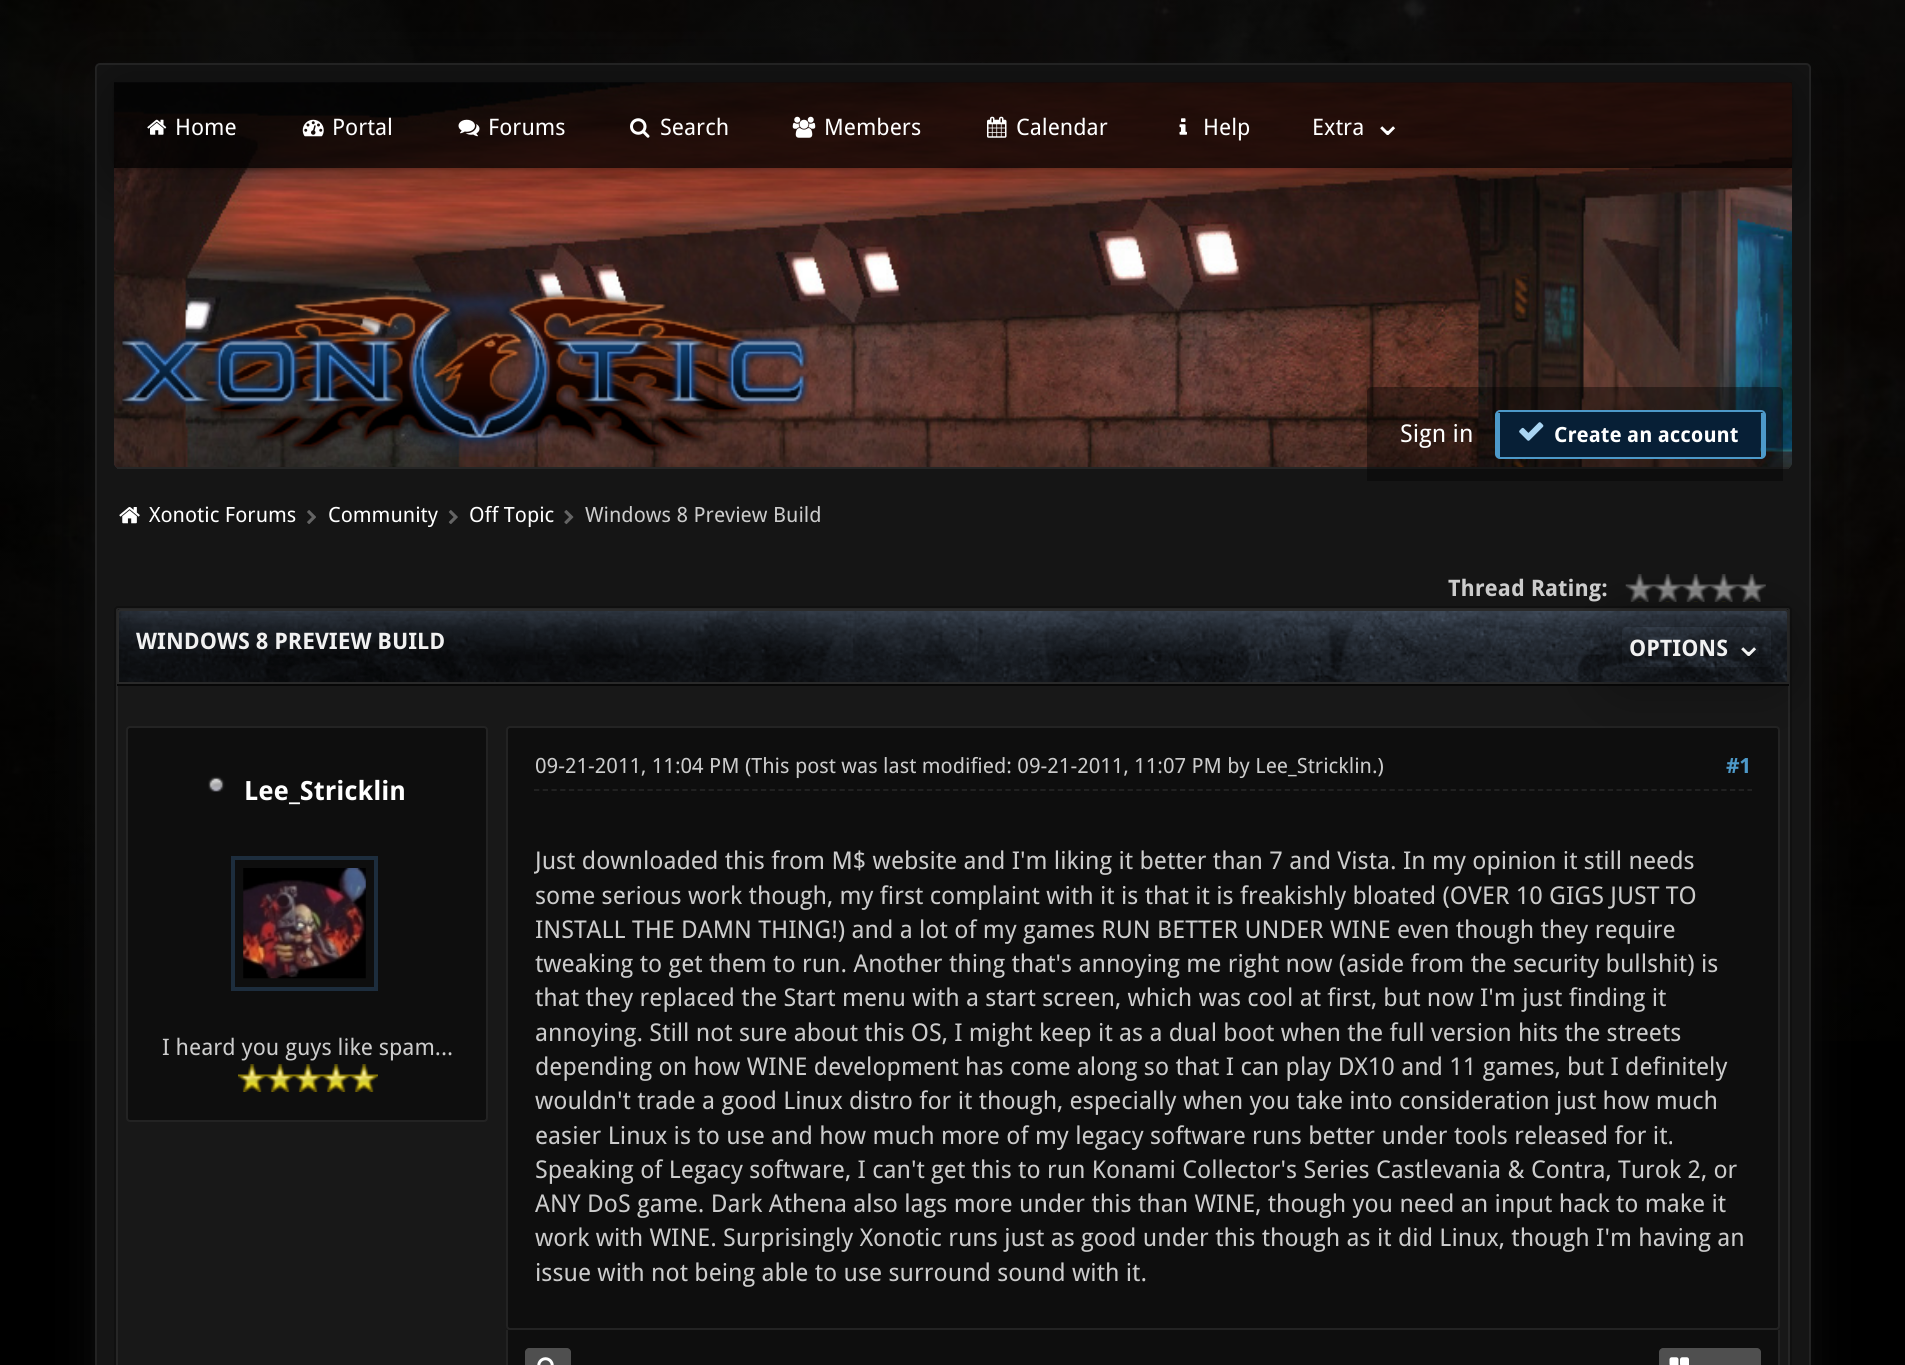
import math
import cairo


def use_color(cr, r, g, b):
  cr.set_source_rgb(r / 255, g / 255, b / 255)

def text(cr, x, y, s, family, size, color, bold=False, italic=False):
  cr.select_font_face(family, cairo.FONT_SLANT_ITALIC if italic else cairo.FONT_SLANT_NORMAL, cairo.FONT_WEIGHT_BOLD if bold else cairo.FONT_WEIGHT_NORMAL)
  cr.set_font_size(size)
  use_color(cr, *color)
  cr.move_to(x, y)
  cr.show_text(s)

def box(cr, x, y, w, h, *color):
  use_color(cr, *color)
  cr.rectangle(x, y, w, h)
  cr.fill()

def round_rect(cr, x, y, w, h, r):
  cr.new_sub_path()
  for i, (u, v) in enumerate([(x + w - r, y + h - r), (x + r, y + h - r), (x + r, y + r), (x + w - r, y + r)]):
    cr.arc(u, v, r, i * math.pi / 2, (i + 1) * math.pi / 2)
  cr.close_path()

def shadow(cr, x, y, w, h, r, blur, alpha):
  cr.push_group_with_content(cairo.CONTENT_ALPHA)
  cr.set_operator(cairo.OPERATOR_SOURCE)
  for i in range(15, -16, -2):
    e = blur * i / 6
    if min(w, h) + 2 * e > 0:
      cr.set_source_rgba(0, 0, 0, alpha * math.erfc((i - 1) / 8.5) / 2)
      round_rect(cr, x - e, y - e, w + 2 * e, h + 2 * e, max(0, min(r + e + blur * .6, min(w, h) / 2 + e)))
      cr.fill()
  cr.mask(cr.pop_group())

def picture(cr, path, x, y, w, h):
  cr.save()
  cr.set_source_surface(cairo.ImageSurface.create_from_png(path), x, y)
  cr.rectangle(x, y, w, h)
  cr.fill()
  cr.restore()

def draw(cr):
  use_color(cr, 0, 0, 0)
  cr.paint()
  picture(cr, "img_01.png", 0, 0, 1905, 1041)
  use_color(cr, 13, 13, 13)
  shadow(cr, 95, 72, 1716, 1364, 5, 22, 1)
  use_color(cr, 21, 21, 21)
  round_rect(cr, 96, 65, 1714, 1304, 4)
  cr.fill()
  round_rect(cr, 96, 64, 1714, 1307, 4)
  use_color(cr, 35, 35, 35)
  cr.stroke()
  use_color(cr, 57, 59, 71)
  cr.new_path()
  cr.move_to(114, 82)
  cr.line_to(1792, 82)
  cr.line_to(1792, 462)
  cr.curve_to(1792, 466, 1789, 469, 1785, 469)
  cr.line_to(121, 469)
  cr.curve_to(117, 469, 114, 466, 114, 462)
  cr.close_path()
  cr.fill()
  picture(cr, "img_09.png", 114, 82, 1678, 386)
  cr.set_source_rgba(0, 0, 0, 0.8)
  cr.rectangle(114, 82, 1678, 86)
  cr.fill()
  cr.save()
  cr.set_fill_rule(cairo.FILL_RULE_EVEN_ODD)
  cr.new_path()
  cr.move_to(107, 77)
  cr.line_to(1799, 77)
  cr.line_to(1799, 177)
  cr.line_to(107, 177)
  cr.close_path()
  cr.move_to(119, 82)
  cr.line_to(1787, 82)
  cr.curve_to(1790, 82, 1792, 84, 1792, 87)
  cr.line_to(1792, 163)
  cr.curve_to(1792, 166, 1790, 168, 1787, 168)
  cr.line_to(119, 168)
  cr.curve_to(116, 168, 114, 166, 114, 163)
  cr.line_to(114, 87)
  cr.curve_to(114, 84, 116, 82, 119, 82)
  cr.close_path()
  cr.clip()
  use_color(cr, 0, 0, 0)
  shadow(cr, 114, 84, 1678, 86, 5, 2, 0.2)
  cr.restore()
  cr.save()
  round_rect(cr, 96, 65, 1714, 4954, 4)
  cr.clip()
  cr.set_fill_rule(cairo.FILL_RULE_EVEN_ODD)
  cr.new_path()
  cr.move_to(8, 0)
  cr.line_to(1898, 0)
  cr.line_to(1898, 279)
  cr.line_to(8, 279)
  cr.close_path()
  cr.move_to(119, 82)
  cr.line_to(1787, 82)
  cr.curve_to(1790, 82, 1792, 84, 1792, 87)
  cr.line_to(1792, 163)
  cr.curve_to(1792, 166, 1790, 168, 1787, 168)
  cr.line_to(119, 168)
  cr.curve_to(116, 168, 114, 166, 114, 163)
  cr.line_to(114, 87)
  cr.curve_to(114, 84, 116, 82, 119, 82)
  cr.close_path()
  cr.clip()
  use_color(cr, 0, 0, 0)
  shadow(cr, 114, 88, 1678, 85, 5, 35, 0.5)
  cr.restore()
  picture(cr, "img_02.png", 147, 119, 20, 16)
  picture(cr, "img_03.png", 302, 119, 22, 18)
  picture(cr, "img_04.png", 458, 119, 22, 18)
  picture(cr, "img_05.png", 630, 118, 20, 20)
  picture(cr, "img_06.png", 792, 116, 24, 22)
  picture(cr, "img_07.png", 987, 116, 20, 22)
  picture(cr, "img_08.png", 1179, 118, 8, 17)
  box(cr, 117, 467, 1672, 2, 38, 38, 38)
  picture(cr, "img_10.png", 122, 287, 687, 170)
  cr.set_source_rgba(0, 0, 0, 0.4)
  cr.new_path()
  cr.move_to(1372, 387)
  cr.line_to(1778, 387)
  cr.curve_to(1781, 387, 1783, 389, 1783, 392)
  cr.line_to(1783, 481)
  cr.line_to(1367, 481)
  cr.line_to(1367, 392)
  cr.curve_to(1367, 389, 1369, 387, 1372, 387)
  cr.close_path()
  cr.fill()
  box(cr, 1500, 412, 260, 45, 7, 31, 54)
  round_rect(cr, 1496, 411, 269, 47, 4)
  use_color(cr, 77, 153, 201)
  cr.stroke()
  box(cr, 1761, 413, 3, 44, 77, 153, 201)
  box(cr, 1497, 413, 3, 44, 77, 153, 201)
  picture(cr, "img_11.png", 1519, 422, 25, 19)
  picture(cr, "img_12.png", 119, 507, 21, 17)
  picture(cr, "img_13.png", 307, 510, 9, 14)
  picture(cr, "img_14.png", 448, 510, 10, 14)
  picture(cr, "img_15.png", 564, 510, 10, 15)
  picture(cr, "img_16.png", 1625, 574, 141, 28)
  use_color(cr, 24, 24, 24)
  round_rect(cr, 117, 608, 1672, 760, 1)
  cr.fill_preserve()
  use_color(cr, 38, 38, 38)
  cr.stroke()
  round_rect(cr, 115, 607, 1676, 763, 3)
  use_color(cr, 16, 16, 16)
  cr.stroke()
  picture(cr, "img_17.png", 117, 609, 1672, 73)
  cr.new_path()
  cr.move_to(121, 610)
  cr.line_to(1785, 610)
  cr.curve_to(1786.5, 610, 1788, 611.5, 1788, 613)
  cr.line_to(1788, 683)
  cr.line_to(118, 683)
  cr.line_to(118, 613)
  cr.curve_to(118, 611.5, 119.5, 610, 121, 610)
  cr.close_path()
  use_color(cr, 42, 42, 42)
  cr.stroke()
  box(cr, 117, 684, 1672, 2, 7, 7, 7)
  use_color(cr, 14, 14, 14)
  round_rect(cr, 507, 727, 1272, 602, 3)
  cr.fill_preserve()
  use_color(cr, 35, 35, 35)
  cr.stroke()
  cr.save()
  round_rect(cr, 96, 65, 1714, 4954, 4)
  cr.clip()
  cr.set_fill_rule(cairo.FILL_RULE_EVEN_ODD)
  cr.new_path()
  cr.move_to(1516, 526)
  cr.line_to(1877, 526)
  cr.line_to(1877, 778)
  cr.line_to(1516, 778)
  cr.close_path()
  cr.move_to(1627, 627)
  cr.line_to(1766, 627)
  cr.curve_to(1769, 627, 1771, 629, 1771, 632)
  cr.line_to(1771, 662)
  cr.curve_to(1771, 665, 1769, 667, 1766, 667)
  cr.line_to(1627, 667)
  cr.curve_to(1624, 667, 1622, 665, 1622, 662)
  cr.line_to(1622, 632)
  cr.curve_to(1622, 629, 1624, 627, 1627, 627)
  cr.close_path()
  cr.clip()
  use_color(cr, 0, 0, 0)
  shadow(cr, 1622, 632, 149, 40, 5, 35, 0.5)
  cr.restore()
  use_color(cr, 14, 14, 14)
  round_rect(cr, 127, 727, 360, 394, 3)
  cr.fill_preserve()
  use_color(cr, 35, 35, 35)
  cr.stroke()
  picture(cr, "img_18.png", 208, 776, 17, 16)
  cr.rectangle(233, 858, 143, 131)
  use_color(cr, 29, 45, 61)
  cr.set_line_width(4)
  cr.stroke()
  picture(cr, "img_19.png", 243, 868, 123, 111)
  picture(cr, "img_20.png", 238, 1064, 28, 28)
  picture(cr, "img_21.png", 266, 1064, 28, 28)
  picture(cr, "img_20.png", 294, 1064, 28, 28)
  picture(cr, "img_20.png", 322, 1064, 28, 28)
  picture(cr, "img_22.png", 350, 1064, 28, 28)
  cr.new_path()
  cr.move_to(534, 790)
  cr.line_to(1752, 790)
  use_color(cr, 35, 35, 35)
  cr.set_line_width(1.8)
  cr.set_dash([5.25, 3.48])
  cr.stroke()
  box(cr, 508, 1330, 1270, 35, 14, 14, 14)
  use_color(cr, 35, 35, 35)
  cr.set_fill_rule(cairo.FILL_RULE_EVEN_ODD)
  cr.new_path()
  cr.move_to(506, 1330)
  cr.line_to(1780, 1330)
  cr.line_to(1780, 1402)
  cr.curve_to(1780, 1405, 1777, 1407, 1774, 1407)
  cr.line_to(511, 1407)
  cr.curve_to(508, 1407, 506, 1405, 506, 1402)
  cr.close_path()
  cr.move_to(508, 1330)
  cr.line_to(1778, 1330)
  cr.line_to(1778, 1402)
  cr.curve_to(1778, 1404, 1776, 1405, 1774, 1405)
  cr.line_to(511, 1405)
  cr.curve_to(509, 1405, 508, 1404, 508, 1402)
  cr.close_path()
  cr.fill()
  use_color(cr, 79, 79, 79)
  cr.set_fill_rule(cairo.FILL_RULE_WINDING)
  cr.new_path()
  cr.move_to(529, 1348)
  cr.line_to(567, 1348)
  cr.curve_to(569, 1348, 571, 1350, 571, 1352)
  cr.line_to(571, 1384)
  cr.curve_to(571, 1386, 569, 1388, 567, 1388)
  cr.line_to(529, 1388)
  cr.curve_to(527, 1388, 525, 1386, 525, 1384)
  cr.line_to(525, 1352)
  cr.curve_to(525, 1350, 527, 1348, 529, 1348)
  cr.close_path()
  cr.fill()
  picture(cr, "img_23.png", 537, 1357, 17, 8)
  cr.new_path()
  cr.move_to(1663, 1348)
  cr.line_to(1757, 1348)
  cr.curve_to(1759, 1348, 1761, 1350, 1761, 1352)
  cr.line_to(1761, 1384)
  cr.curve_to(1761, 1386, 1759, 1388, 1757, 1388)
  cr.line_to(1663, 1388)
  cr.curve_to(1661, 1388, 1659, 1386, 1659, 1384)
  cr.line_to(1659, 1352)
  cr.curve_to(1659, 1350, 1661, 1348, 1663, 1348)
  cr.close_path()
  cr.fill()
  picture(cr, "img_24.png", 1669, 1357, 20, 8)
  text(cr, 175, 135, "Home", "Droid Sans", 22.75, (255, 255, 255))
  text(cr, 332, 135, "Portal", "Droid Sans", 22.75, (255, 255, 255))
  text(cr, 488, 135, "Forums", "Droid Sans", 22.75, (255, 255, 255))
  text(cr, 660, 135, "Search", "Droid Sans", 22.75, (255, 255, 255))
  text(cr, 824, 135, "Members", "Droid Sans", 22.75, (255, 255, 255))
  text(cr, 1016, 135, "Calendar", "Droid Sans", 22.75, (255, 255, 255))
  text(cr, 1203, 135, "Help", "Droid Sans", 22.75, (255, 255, 255))
  text(cr, 1312, 135, "Extra", "Droid Sans", 22.75, (255, 255, 255))
  text(cr, 1373, 135, "⌄", "DejaVu Sans", 35, (255, 255, 255))
  text(cr, 1400, 442, "Sign in", "Droid Sans", 24.5, (255, 255, 255))
  text(cr, 1554, 442, "Create an account", "Droid Sans", 21, (255, 255, 255), bold=True)
  text(cr, 149, 522, "Xonotic Forums", "Droid Sans", 21, (255, 255, 255))
  text(cr, 328, 522, "Community", "Droid Sans", 21, (255, 255, 255))
  text(cr, 469, 522, "Off Topic", "Droid Sans", 21, (255, 255, 255))
  text(cr, 585, 522, "Windows 8 Preview Build", "Droid Sans", 21, (204, 204, 204))
  text(cr, 1448, 596, "Thread Rating:", "Droid Sans", 22.75, (204, 204, 204), bold=True)
  text(cr, 136, 649, "WINDOWS 8 PREVIEW BUILD", "Droid Sans", 22.75, (241, 241, 241), bold=True)
  text(cr, 1629, 656, "OPTIONS", "Droid Sans", 22.75, (241, 241, 241), bold=True)
  text(cr, 1734, 656, "⌄", "DejaVu Sans", 35, (241, 241, 241))
  text(cr, 244, 800, "Lee_Stricklin", "Droid Sans", 26.5, (255, 255, 255), bold=True)
  text(cr, 162, 1055, "I heard you guys like spam...", "Droid Sans", 22.75, (204, 204, 204))
  text(cr, 535, 773, "09-21-2011, 11:04 PM (This post was last modified: 09-21-2011, 11:07 PM by Lee_Stricklin.)", "Droid Sans", 21, (204, 204, 204))
  text(cr, 1726, 773, "#1", "Droid Sans", 21, (77, 153, 201), bold=True)
  cr.save()
  cr.rectangle(534, 798, 1218, 513)
  cr.clip()
  text(cr, 535, 869, "Just downloaded this from M$ website and I'm liking it better than 7 and Vista. In my opinion it still needs", "Droid Sans", 24.5, (204, 204, 204))
  cr.restore()
  text(cr, 535, 904, "some serious work though, my first complaint with it is that it is freakishly bloated (OVER 10 GIGS JUST TO", "Droid Sans", 24.5, (204, 204, 204))
  text(cr, 535, 938, "INSTALL THE DAMN THING!) and a lot of my games RUN BETTER UNDER WINE even though they require", "Droid Sans", 24.5, (204, 204, 204))
  text(cr, 535, 972, "tweaking to get them to run. Another thing that's annoying me right now (aside from the security bullshit) is", "Droid Sans", 24.5, (204, 204, 204))
  text(cr, 535, 1006, "that they replaced the Start menu with a start screen, which was cool at first, but now I'm just finding it", "Droid Sans", 24.5, (204, 204, 204))
  text(cr, 535, 1041, "annoying. Still not sure about this OS, I might keep it as a dual boot when the full version hits the streets", "Droid Sans", 24.5, (204, 204, 204))
  text(cr, 535, 1075, "depending on how WINE development has come along so that I can play DX10 and 11 games, but I definitely", "Droid Sans", 24.5, (204, 204, 204))
  text(cr, 535, 1109, "wouldn't trade a good Linux distro for it though, especially when you take into consideration just how much", "Droid Sans", 24.5, (204, 204, 204))
  text(cr, 535, 1144, "easier Linux is to use and how much more of my legacy software runs better under tools released for it.", "Droid Sans", 24.5, (204, 204, 204))
  text(cr, 535, 1178, "Speaking of Legacy software, I can't get this to run Konami Collector's Series Castlevania & Contra, Turok 2, or", "Droid Sans", 24.5, (204, 204, 204))
  text(cr, 535, 1212, "ANY DoS game. Dark Athena also lags more under this than WINE, though you need an input hack to make it", "Droid Sans", 24.5, (204, 204, 204))
  text(cr, 535, 1246, "work with WINE. Surprisingly Xonotic runs just as good under this though as it did Linux, though I'm having an", "Droid Sans", 24.5, (204, 204, 204))
  text(cr, 535, 1281, "issue with not being able to use surround sound with it.", "Droid Sans", 24.5, (204, 204, 204))


surface = cairo.ImageSurface(cairo.FORMAT_RGB24, 1905, 1365)
cr = cairo.Context(surface)
options = cairo.FontOptions()
options.set_hint_metrics(cairo.HINT_METRICS_OFF)
options.set_hint_style(cairo.HINT_STYLE_NONE)
cr.set_font_options(options)
cr.set_miter_limit(4)
draw(cr)
surface.write_to_png("out.png")
